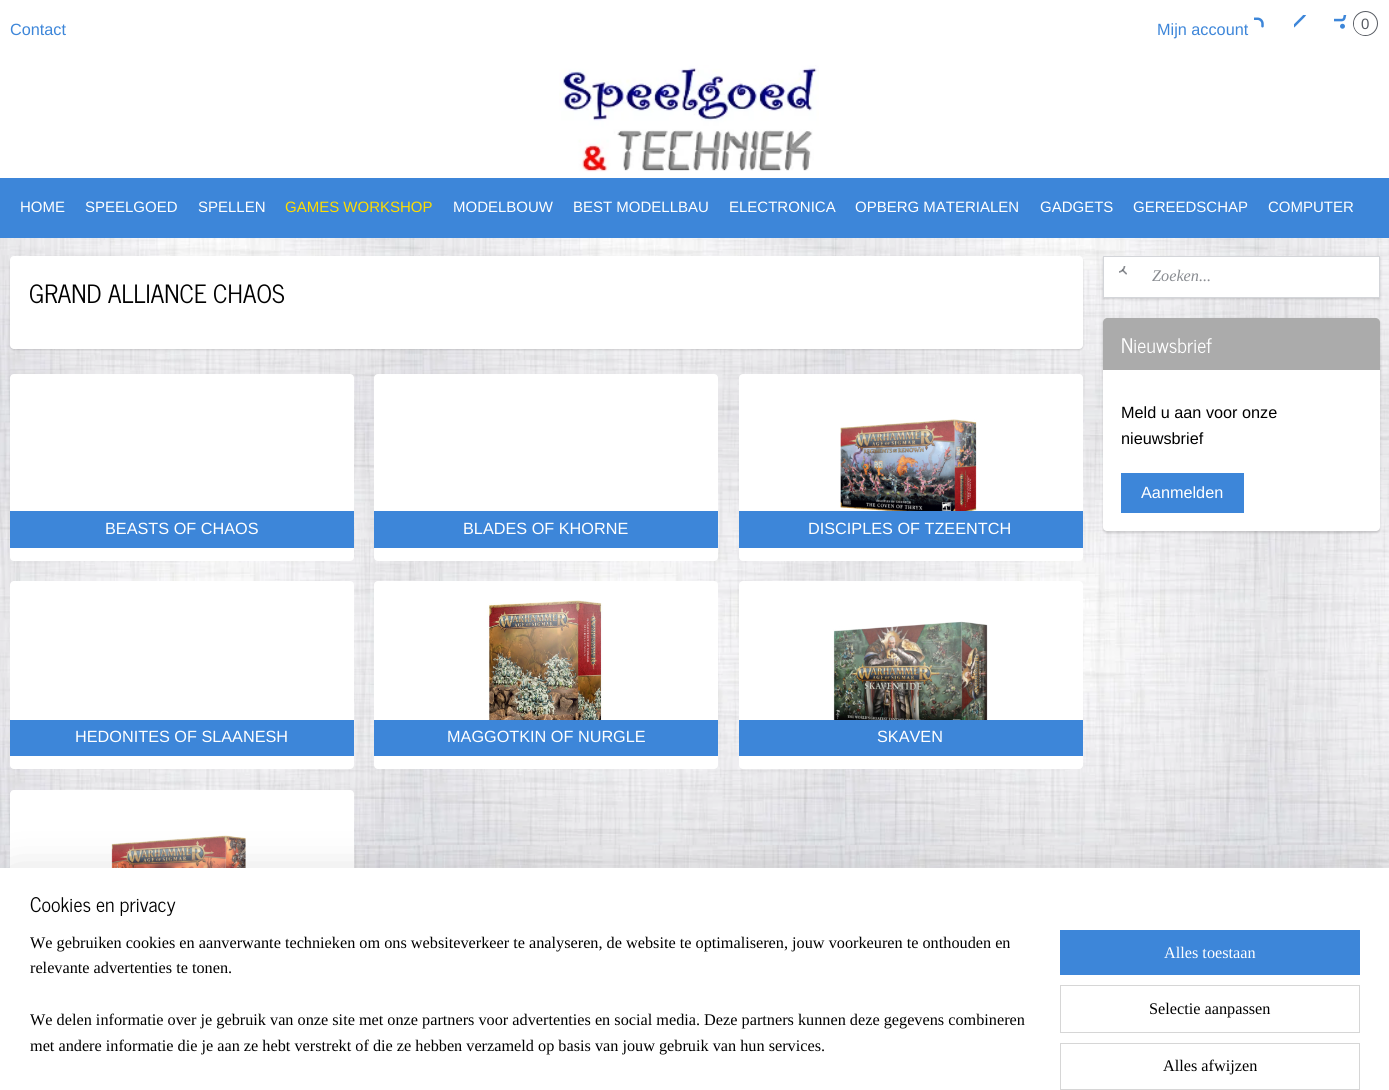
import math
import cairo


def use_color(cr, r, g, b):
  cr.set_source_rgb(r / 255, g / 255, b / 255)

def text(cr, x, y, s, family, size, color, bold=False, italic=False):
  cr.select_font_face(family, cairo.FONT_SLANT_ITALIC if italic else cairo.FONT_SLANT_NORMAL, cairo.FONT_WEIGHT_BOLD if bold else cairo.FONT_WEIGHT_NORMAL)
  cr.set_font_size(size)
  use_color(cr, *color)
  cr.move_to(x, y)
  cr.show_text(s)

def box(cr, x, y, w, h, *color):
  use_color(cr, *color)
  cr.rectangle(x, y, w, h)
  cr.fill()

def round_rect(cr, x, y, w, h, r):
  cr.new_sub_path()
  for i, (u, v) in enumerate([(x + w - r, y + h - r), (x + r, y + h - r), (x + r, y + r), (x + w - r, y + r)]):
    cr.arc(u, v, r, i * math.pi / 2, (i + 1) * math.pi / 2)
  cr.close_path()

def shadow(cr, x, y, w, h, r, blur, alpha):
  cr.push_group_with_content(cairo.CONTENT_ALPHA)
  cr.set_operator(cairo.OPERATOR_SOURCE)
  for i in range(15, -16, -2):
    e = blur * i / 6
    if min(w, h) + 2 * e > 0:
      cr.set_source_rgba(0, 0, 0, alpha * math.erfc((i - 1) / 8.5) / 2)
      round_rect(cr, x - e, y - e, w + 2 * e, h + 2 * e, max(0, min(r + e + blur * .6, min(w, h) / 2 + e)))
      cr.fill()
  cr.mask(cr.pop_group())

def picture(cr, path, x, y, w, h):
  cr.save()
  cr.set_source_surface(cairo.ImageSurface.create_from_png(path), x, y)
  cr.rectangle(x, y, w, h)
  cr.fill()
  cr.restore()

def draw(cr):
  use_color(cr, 255, 255, 255)
  cr.paint()
  picture(cr, "img_01.png", 1294, 15, 13, 13)
  picture(cr, "img_02.png", 1254, 17, 10, 11)
  picture(cr, "img_03.png", 1334, 15, 13, 14)
  cr.arc(1365.5, 23.5, 12, 0, 2 * math.pi)
  use_color(cr, 87, 91, 98)
  cr.set_line_width(1)
  cr.stroke()
  use_color(cr, 255, 255, 255)
  cr.arc(1365, 24, 11, 0, 2 * math.pi)
  cr.fill()
  picture(cr, "img_04.png", 559, 65, 260, 107)
  box(cr, 0, 178, 1389, 60, 61, 134, 217)
  picture(cr, "img_05.png", 0, 238, 1389, 630)
  use_color(cr, 0, 0, 0)
  shadow(cr, 10, 258, 1073, 92, 4, 1, 0.15)
  use_color(cr, 255, 255, 255)
  round_rect(cr, 10, 256, 1073, 93, 4)
  cr.fill()
  round_rect(cr, 10, 374, 344, 187, 4)
  cr.fill()
  box(cr, 10, 511, 344, 37, 61, 134, 217)
  use_color(cr, 255, 255, 255)
  round_rect(cr, 374, 374, 344, 187, 4)
  cr.fill()
  box(cr, 374, 511, 344, 37, 61, 134, 217)
  use_color(cr, 255, 255, 255)
  round_rect(cr, 739, 374, 344, 187, 4)
  cr.fill()
  picture(cr, "img_06.png", 840, 419, 137, 92)
  box(cr, 739, 511, 344, 37, 61, 134, 217)
  use_color(cr, 255, 255, 255)
  round_rect(cr, 10, 581, 344, 188, 4)
  cr.fill()
  box(cr, 10, 720, 344, 36, 61, 134, 217)
  use_color(cr, 255, 255, 255)
  round_rect(cr, 374, 581, 344, 188, 4)
  cr.fill()
  picture(cr, "img_07.png", 487, 600, 116, 120)
  box(cr, 374, 720, 344, 36, 61, 134, 217)
  use_color(cr, 255, 255, 255)
  round_rect(cr, 739, 581, 344, 188, 4)
  cr.fill()
  picture(cr, "img_08.png", 833, 621, 155, 99)
  box(cr, 739, 720, 344, 36, 61, 134, 217)
  use_color(cr, 255, 255, 255)
  round_rect(cr, 10, 790, 344, 188, 4)
  cr.fill()
  picture(cr, "img_09.png", 111, 835, 135, 33)
  use_color(cr, 0, 0, 0)
  shadow(cr, 1103, 258, 277, 41, 0, 1, 0.15)
  use_color(cr, 255, 255, 255)
  cr.rectangle(1103.5, 256.5, 276, 41)
  cr.fill_preserve()
  use_color(cr, 211, 213, 217)
  cr.stroke()
  picture(cr, "img_10.png", 1119, 266, 8, 9)
  use_color(cr, 0, 0, 0)
  shadow(cr, 1103, 319, 277, 214, 4, 1, 0.15)
  use_color(cr, 255, 255, 255)
  round_rect(cr, 1103, 318, 277, 213, 4)
  cr.fill()
  use_color(cr, 171, 171, 171)
  cr.new_path()
  cr.move_to(1107, 318)
  cr.line_to(1376, 318)
  cr.curve_to(1378, 318, 1380, 320, 1380, 322)
  cr.line_to(1380, 370)
  cr.line_to(1103, 370)
  cr.line_to(1103, 322)
  cr.curve_to(1103, 320, 1105, 318, 1107, 318)
  cr.close_path()
  cr.fill()
  box(cr, 1121, 473, 123, 40, 61, 134, 217)
  use_color(cr, 0, 0, 0)
  shadow(cr, 13, 880, 1365, 198, 0, 22.5, 0.2)
  box(cr, 0, 868, 1389, 222, 255, 255, 255)
  box(cr, 1060, 930, 300, 45, 61, 134, 217)
  cr.rectangle(1060.5, 985.5, 299, 47)
  use_color(cr, 214, 214, 214)
  cr.stroke()
  cr.rectangle(1060.5, 1043.5, 299, 46)
  cr.stroke()
  text(cr, 10, 35, "Contact", "Liberation Sans", 16.25, (61, 134, 217))
  text(cr, 1157, 35, "Mijn account", "Liberation Sans", 16.25, (61, 134, 217))
  text(cr, 1361, 29, "0", "Liberation Sans", 15, (87, 91, 98))
  text(cr, 20, 212, "HOME", "Liberation Sans", 15, (255, 255, 255))
  text(cr, 85, 212, "SPEELGOED", "Liberation Sans", 15, (255, 255, 255))
  text(cr, 198, 212, "SPELLEN", "Liberation Sans", 15, (255, 255, 255))
  text(cr, 285, 212, "GAMES WORKSHOP", "Liberation Sans", 15, (255, 221, 0))
  text(cr, 453, 212, "MODELBOUW", "Liberation Sans", 15, (255, 255, 255))
  text(cr, 573, 212, "BEST MODELLBAU", "Liberation Sans", 15, (255, 255, 255))
  text(cr, 729, 212, "ELECTRONICA", "Liberation Sans", 15, (255, 255, 255))
  text(cr, 855, 212, "OPBERG MATERIALEN", "Liberation Sans", 15, (255, 255, 255))
  text(cr, 1040, 212, "GADGETS", "Liberation Sans", 15, (255, 255, 255))
  text(cr, 1133, 212, "GEREEDSCHAP", "Liberation Sans", 15, (255, 255, 255))
  text(cr, 1268, 212, "COMPUTER", "Liberation Sans", 15, (255, 255, 255))
  text(cr, 29, 303, "GRAND ALLIANCE CHAOS", "News Cycle", 25, (0, 0, 0))
  text(cr, 105, 534, "BEASTS OF CHAOS", "Liberation Sans", 16.25, (255, 255, 255))
  text(cr, 463, 534, "BLADES OF KHORNE", "Liberation Sans", 16.25, (255, 255, 255))
  text(cr, 808, 534, "DISCIPLES OF TZEENTCH", "Liberation Sans", 16.25, (255, 255, 255))
  text(cr, 75, 742, "HEDONITES OF SLAANESH", "Liberation Sans", 16.25, (255, 255, 255))
  text(cr, 447, 742, "MAGGOTKIN OF NURGLE", "Liberation Sans", 16.25, (255, 255, 255))
  text(cr, 877, 742, "SKAVEN", "Liberation Sans", 16.25, (255, 255, 255))
  text(cr, 1152, 281, "Zoeken...", "Liberation Serif", 16.25, (137, 140, 145), italic=True)
  text(cr, 1121, 353, "Nieuwsbrief", "News Cycle", 20, (255, 255, 255))
  text(cr, 1121, 418, "Meld u aan voor onze", "Liberation Sans", 16.25, (0, 0, 0))
  text(cr, 1121, 444, "nieuwsbrief", "Liberation Sans", 16.25, (0, 0, 0))
  text(cr, 1141, 498, "Aanmelden", "Liberation Sans", 16.25, (255, 255, 255))
  text(cr, 30, 912, "Cookies en privacy", "News Cycle", 20, (0, 0, 0))
  text(cr, 30, 948, "We gebruiken cookies en aanverwante technieken om ons websiteverkeer te analyseren, de website te optimaliseren, jouw voorkeuren te onthouden en", "Liberation Serif", 16.25, (0, 0, 0))
  text(cr, 30, 973, "relevante advertenties te tonen.", "Liberation Serif", 16.25, (0, 0, 0))
  text(cr, 30, 1025, "We delen informatie over je gebruik van onze site met onze partners voor advertenties en social media. Deze partners kunnen deze gegevens combineren", "Liberation Serif", 16.25, (0, 0, 0))
  text(cr, 30, 1051, "met andere informatie die je aan ze hebt verstrekt of die ze hebben verzameld op basis van jouw gebruik van hun services.", "Liberation Serif", 16.25, (0, 0, 0))
  text(cr, 1164, 958, "Alles toestaan", "Liberation Serif", 16.25, (255, 255, 255))
  text(cr, 1149, 1014, "Selectie aanpassen", "Liberation Serif", 16.25, (0, 0, 0))
  text(cr, 1163, 1071, "Alles afwijzen", "Liberation Serif", 16.25, (0, 0, 0))


surface = cairo.ImageSurface(cairo.FORMAT_RGB24, 1389, 1090)
cr = cairo.Context(surface)
options = cairo.FontOptions()
options.set_hint_metrics(cairo.HINT_METRICS_OFF)
options.set_hint_style(cairo.HINT_STYLE_NONE)
cr.set_font_options(options)
cr.set_miter_limit(4)
draw(cr)
surface.write_to_png("out.png")
